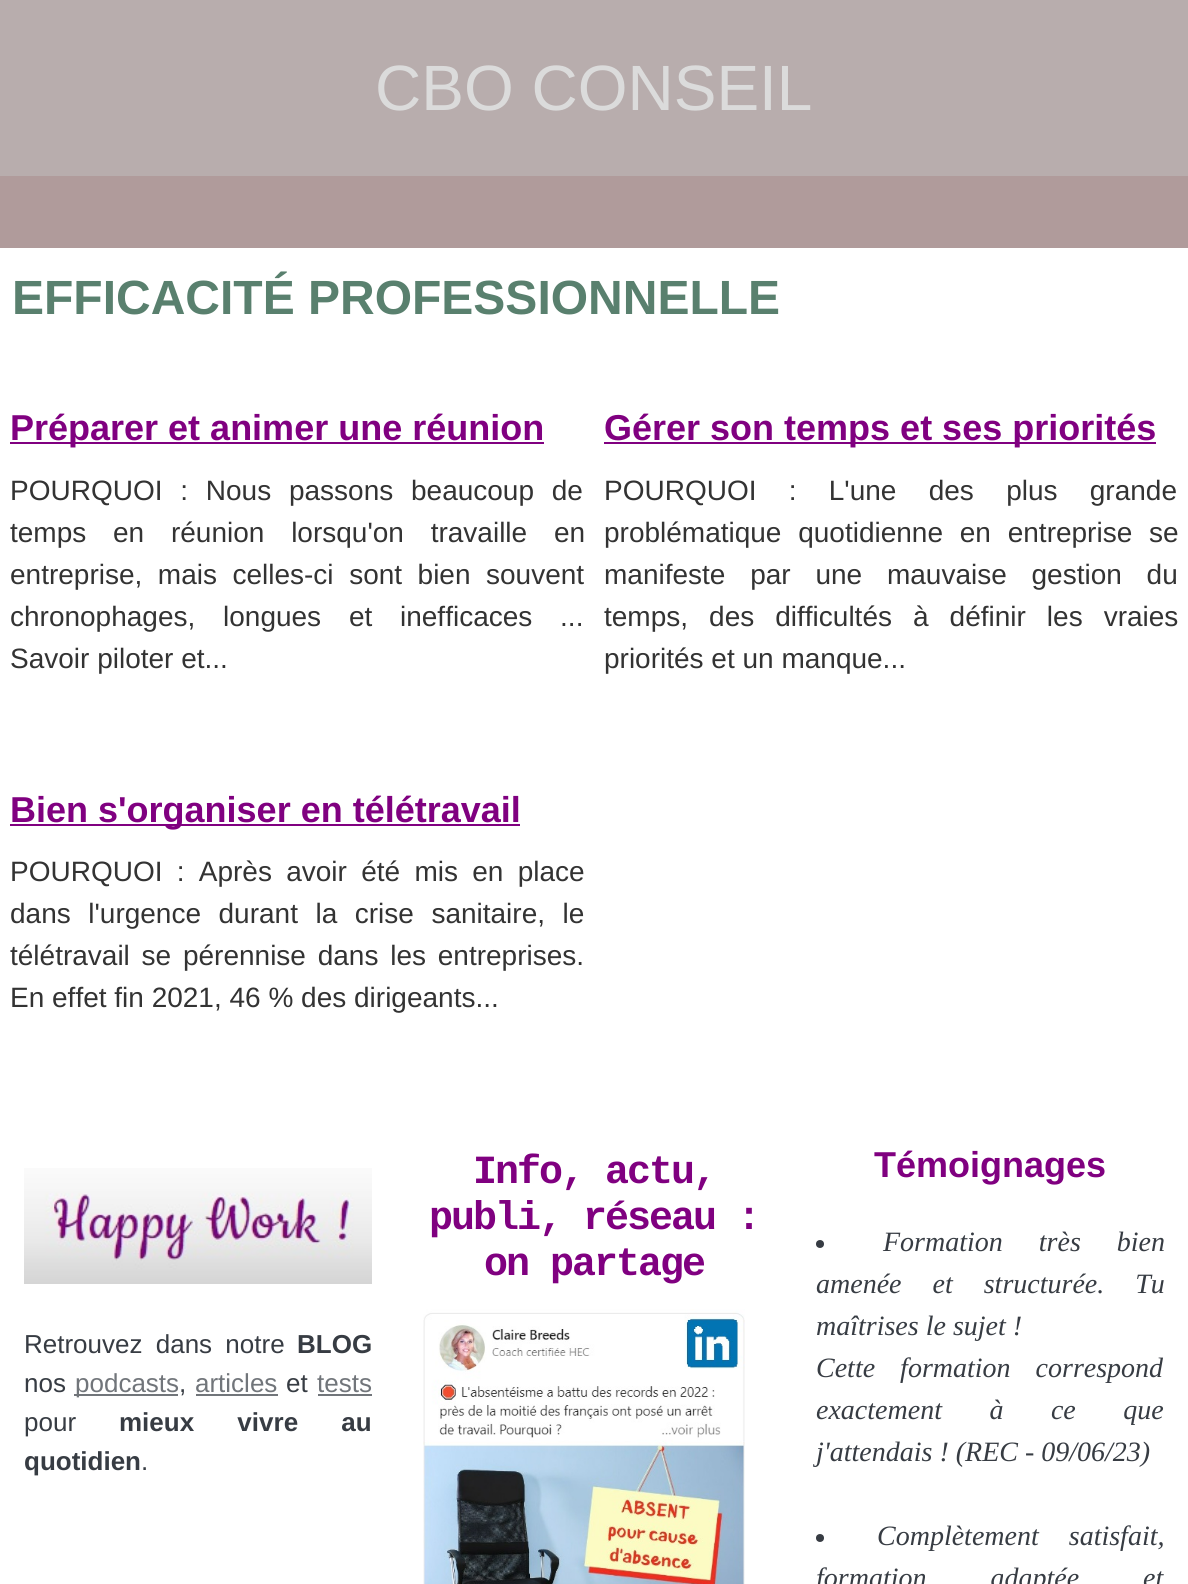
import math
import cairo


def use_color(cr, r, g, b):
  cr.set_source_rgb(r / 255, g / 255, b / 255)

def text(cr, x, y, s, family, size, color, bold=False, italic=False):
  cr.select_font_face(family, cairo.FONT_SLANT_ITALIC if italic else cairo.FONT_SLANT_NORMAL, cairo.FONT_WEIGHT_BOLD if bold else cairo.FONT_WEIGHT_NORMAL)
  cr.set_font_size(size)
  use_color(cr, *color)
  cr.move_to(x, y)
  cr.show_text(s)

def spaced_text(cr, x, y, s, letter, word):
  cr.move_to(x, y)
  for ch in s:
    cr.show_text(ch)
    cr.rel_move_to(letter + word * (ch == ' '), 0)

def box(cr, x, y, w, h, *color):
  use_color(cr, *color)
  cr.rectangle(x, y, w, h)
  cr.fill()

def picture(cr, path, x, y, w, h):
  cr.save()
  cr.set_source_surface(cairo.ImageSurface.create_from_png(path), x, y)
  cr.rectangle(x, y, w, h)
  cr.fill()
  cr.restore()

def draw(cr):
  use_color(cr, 255, 255, 255)
  cr.paint()
  box(cr, 0, 176, 1188, 72, 176, 155, 155)
  box(cr, 0, 0, 1188, 176, 184, 173, 173)
  box(cr, 10, 442, 534, 2, 128, 0, 128)
  box(cr, 604, 442, 552, 2, 128, 0, 128)
  box(cr, 10, 824, 510, 2, 128, 0, 128)
  picture(cr, "img_01.png", 423, 1309, 322, 275)
  use_color(cr, 55, 60, 67)
  cr.arc(820, 1244, 4, 0, 2 * math.pi)
  cr.fill()
  cr.arc(820, 1538, 4, 0, 2 * math.pi)
  cr.fill()
  picture(cr, "img_02.png", 24, 1168, 348, 116)
  box(cr, 74, 1394, 104, 2, 113, 117, 122)
  box(cr, 196, 1394, 82, 2, 113, 117, 122)
  box(cr, 318, 1394, 54, 2, 113, 117, 122)
  text(cr, 375, 110, "CBO CONSEIL", "Liberation Sans", 64, (219, 219, 219))
  text(cr, 12, 314, "EFFICACITÉ PROFESSIONNELLE", "Liberation Sans", 48, (89, 128, 110), bold=True)
  text(cr, 10, 440, "Préparer et animer une réunion", "Liberation Sans", 36, (128, 0, 128), bold=True)
  cr.select_font_face("Liberation Sans")
  cr.set_font_size(28)
  use_color(cr, 51, 51, 51)
  spaced_text(cr, 10, 500, "POURQUOI : Nous passons beaucoup de", 0, 10)
  spaced_text(cr, 10, 542, "temps en réunion lorsqu'on travaille en", 0, 19)
  spaced_text(cr, 10, 584, "entreprise, mais celles-ci sont bien souvent", 0, 7.75)
  spaced_text(cr, 10, 626, "chronophages, longues et inefficaces ...", 0, 20)
  text(cr, 10, 668, "Savoir piloter et...", "Liberation Sans", 28, (51, 51, 51))
  text(cr, 604, 440, "Gérer son temps et ses priorités", "Liberation Sans", 36, (128, 0, 128), bold=True)
  cr.select_font_face("Liberation Sans")
  cr.set_font_size(28)
  use_color(cr, 51, 51, 51)
  spaced_text(cr, 604, 500, "POURQUOI : L'une des plus grande", 0, 24.5)
  spaced_text(cr, 604, 542, "problématique quotidienne en entreprise se", 0, 9)
  spaced_text(cr, 604, 584, "manifeste par une mauvaise gestion du", 0, 17)
  spaced_text(cr, 604, 626, "temps, des difficultés à définir les vraies", 0, 13.25)
  text(cr, 604, 668, "priorités et un manque...", "Liberation Sans", 28, (51, 51, 51))
  text(cr, 10, 822, "Bien s'organiser en télétravail", "Liberation Sans", 36, (128, 0, 128), bold=True)
  cr.select_font_face("Liberation Sans")
  cr.set_font_size(28)
  use_color(cr, 51, 51, 51)
  spaced_text(cr, 10, 881, "POURQUOI : Après avoir été mis en place", 0, 6.5)
  spaced_text(cr, 10, 923, "dans l'urgence durant la crise sanitaire, le", 0, 9.75)
  spaced_text(cr, 10, 965, "télétravail se pérennise dans les entreprises.", 0, 4)
  text(cr, 10, 1007, "En effet fin 2021, 46 % des dirigeants...", "Liberation Sans", 28, (51, 51, 51))
  cr.select_font_face("Liberation Mono", cairo.FONT_SLANT_NORMAL, cairo.FONT_WEIGHT_BOLD)
  cr.set_font_size(40)
  use_color(cr, 128, 0, 128)
  spaced_text(cr, 473, 1183, "Info, actu,", -2, 0)
  spaced_text(cr, 429, 1229, "publi, réseau :", -2, 0)
  spaced_text(cr, 484, 1275, "on partage", -2, 0)
  text(cr, 874, 1177, "Témoignages", "Liberation Sans", 36, (128, 0, 128), bold=True)
  cr.select_font_face("Liberation Serif", cairo.FONT_SLANT_ITALIC)
  cr.set_font_size(28)
  use_color(cr, 55, 60, 67)
  spaced_text(cr, 883, 1251, "Formation très bien", 0, 29)
  spaced_text(cr, 816, 1293, "amenée et structurée. Tu", 0, 24)
  text(cr, 816, 1335, "maîtrises le sujet !", "Liberation Serif", 28, (55, 60, 67), italic=True)
  spaced_text(cr, 816, 1377, "Cette formation correspond", 0, 18)
  spaced_text(cr, 816, 1419, "exactement à ce que", 0, 40.5)
  text(cr, 816, 1461, "j'attendais ! (REC - 09/06/23)", "Liberation Serif", 28, (55, 60, 67), italic=True)
  spaced_text(cr, 877, 1545, "Complètement satisfait,", 0, 23)
  spaced_text(cr, 816, 1587, "formation adaptée et", 0, 57)
  cr.select_font_face("Liberation Sans")
  cr.set_font_size(26)
  spaced_text(cr, 24, 1353, "Retrouvez dans notre", 0, 6)
  text(cr, 297, 1353, "BLOG", "Liberation Sans", 26, (55, 60, 67), bold=True)
  text(cr, 24, 1392, "nos", "Liberation Sans", 26, (55, 60, 67))
  text(cr, 75, 1392, "podcasts", "Liberation Sans", 26, (113, 117, 122))
  text(cr, 179, 1392, ",", "Liberation Sans", 26, (55, 60, 67))
  text(cr, 195, 1392, "articles", "Liberation Sans", 26, (113, 117, 122))
  text(cr, 286, 1392, "et", "Liberation Sans", 26, (55, 60, 67))
  text(cr, 317, 1392, "tests", "Liberation Sans", 26, (113, 117, 122))
  text(cr, 24, 1431, "pour", "Liberation Sans", 26, (55, 60, 67))
  cr.select_font_face("Liberation Sans", cairo.FONT_SLANT_NORMAL, cairo.FONT_WEIGHT_BOLD)
  spaced_text(cr, 119, 1431, "mieux vivre au", 0, 36)
  text(cr, 24, 1470, "quotidien", "Liberation Sans", 26, (55, 60, 67), bold=True)
  text(cr, 141, 1470, ".", "Liberation Sans", 26, (55, 60, 67))


surface = cairo.ImageSurface(cairo.FORMAT_RGB24, 1188, 1584)
cr = cairo.Context(surface)
options = cairo.FontOptions()
options.set_hint_metrics(cairo.HINT_METRICS_OFF)
options.set_hint_style(cairo.HINT_STYLE_NONE)
cr.set_font_options(options)
cr.set_miter_limit(4)
draw(cr)
surface.write_to_png("out.png")
